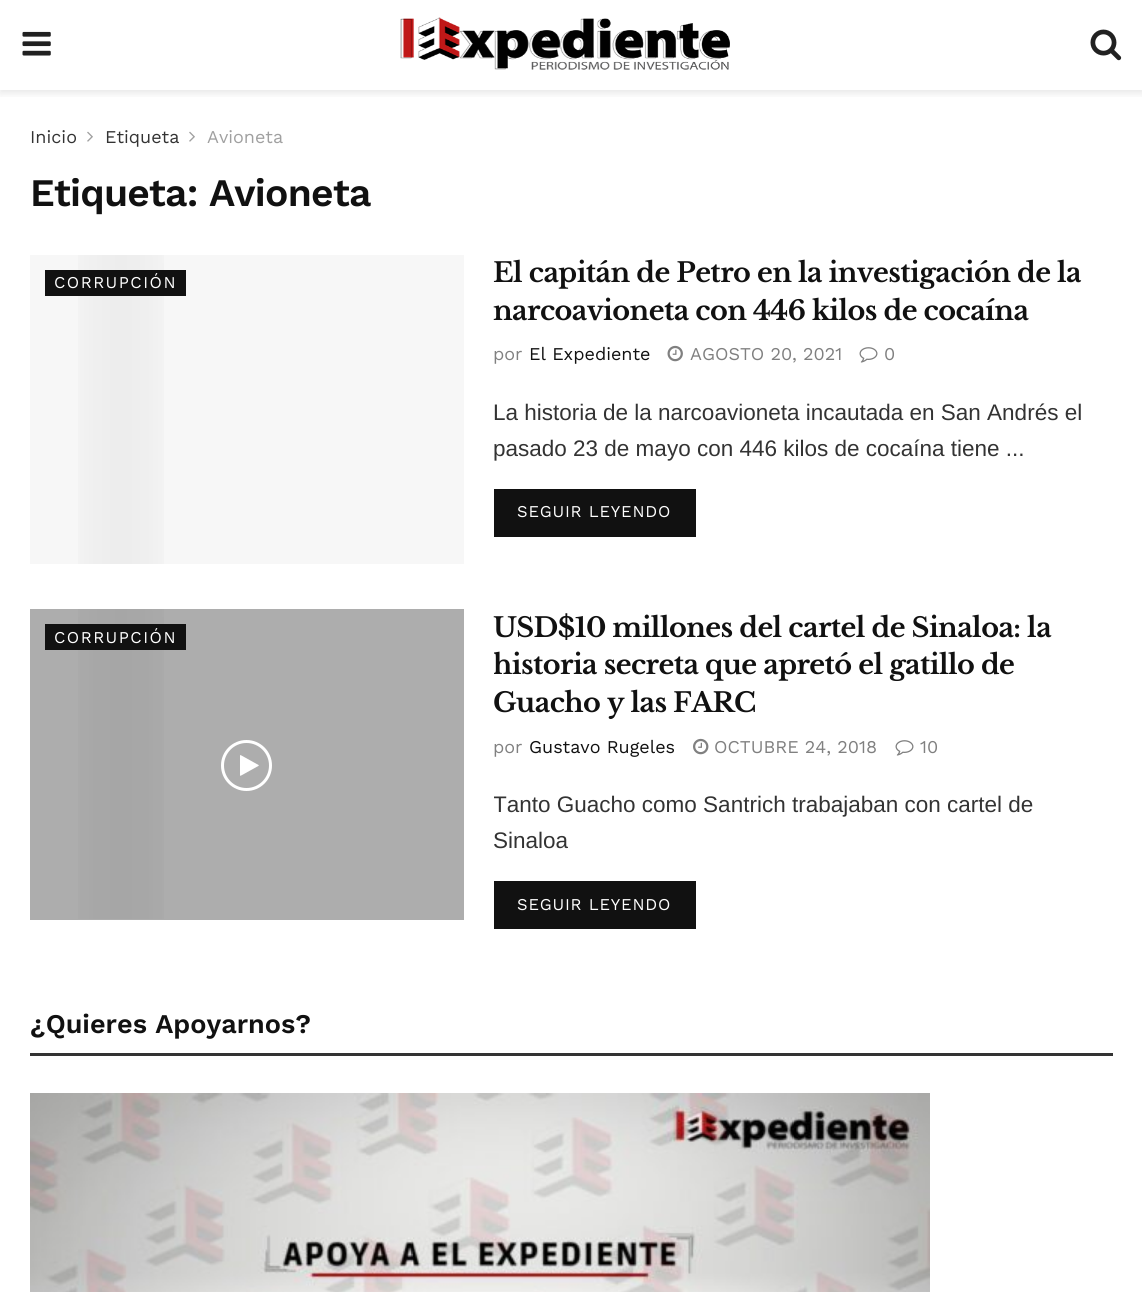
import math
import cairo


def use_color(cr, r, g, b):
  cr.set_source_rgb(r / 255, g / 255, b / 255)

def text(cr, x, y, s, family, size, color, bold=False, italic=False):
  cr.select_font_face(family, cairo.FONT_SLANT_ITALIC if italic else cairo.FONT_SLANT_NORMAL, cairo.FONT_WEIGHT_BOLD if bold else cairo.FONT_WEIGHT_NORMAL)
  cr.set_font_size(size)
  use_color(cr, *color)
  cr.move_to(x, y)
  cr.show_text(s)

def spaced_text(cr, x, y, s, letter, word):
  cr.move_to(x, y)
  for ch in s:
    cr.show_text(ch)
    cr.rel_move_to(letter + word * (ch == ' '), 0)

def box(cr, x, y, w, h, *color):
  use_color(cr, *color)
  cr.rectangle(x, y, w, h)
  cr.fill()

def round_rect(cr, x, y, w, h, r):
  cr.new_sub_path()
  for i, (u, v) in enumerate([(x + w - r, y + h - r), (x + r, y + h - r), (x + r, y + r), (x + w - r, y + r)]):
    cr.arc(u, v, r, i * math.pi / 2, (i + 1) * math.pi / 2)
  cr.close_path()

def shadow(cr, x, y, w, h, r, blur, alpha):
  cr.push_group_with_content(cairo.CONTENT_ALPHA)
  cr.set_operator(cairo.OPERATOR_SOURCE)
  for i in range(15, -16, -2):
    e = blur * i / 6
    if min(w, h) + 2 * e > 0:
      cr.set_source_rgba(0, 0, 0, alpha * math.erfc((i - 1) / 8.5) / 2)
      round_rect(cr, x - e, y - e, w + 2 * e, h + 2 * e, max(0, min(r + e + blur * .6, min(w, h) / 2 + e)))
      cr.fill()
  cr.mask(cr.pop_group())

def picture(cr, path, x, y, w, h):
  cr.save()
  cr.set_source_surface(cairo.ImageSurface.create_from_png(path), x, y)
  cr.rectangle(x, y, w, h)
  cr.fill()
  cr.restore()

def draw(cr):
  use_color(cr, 255, 255, 255)
  cr.paint()
  cr.save()
  cr.rectangle(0, 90, 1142, 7)
  cr.clip()
  use_color(cr, 0, 0, 0)
  shadow(cr, 0, 3, 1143, 90, 0, 4.5, 0.1)
  cr.restore()
  picture(cr, "img_01.png", 22, 31, 29, 25)
  picture(cr, "img_02.png", 400, 17, 330, 53)
  picture(cr, "img_03.png", 1090, 29, 32, 32)
  picture(cr, "img_04.png", 87, 131, 6, 11)
  picture(cr, "img_04.png", 189, 131, 6, 11)
  box(cr, 30, 255, 434, 309, 247, 247, 247)
  picture(cr, "img_05.png", 78, 255, 86, 309)
  box(cr, 45, 270, 141, 26, 17, 17, 17)
  picture(cr, "img_06.png", 667, 345, 16, 17)
  picture(cr, "img_07.png", 859, 347, 19, 16)
  box(cr, 494, 489, 202, 48, 17, 17, 17)
  box(cr, 30, 609, 434, 311, 173, 173, 173)
  picture(cr, "img_08.png", 78, 609, 86, 310)
  box(cr, 45, 624, 141, 26, 17, 17, 17)
  cr.arc(246.5, 765.5, 24, 0, 2 * math.pi)
  use_color(cr, 255, 255, 255)
  cr.set_line_width(3)
  cr.stroke()
  picture(cr, "img_09.png", 240, 755, 19, 21)
  picture(cr, "img_10.png", 693, 738, 16, 17)
  picture(cr, "img_07.png", 895, 740, 19, 16)
  box(cr, 494, 881, 202, 48, 17, 17, 17)
  box(cr, 30, 1053, 1083, 3, 51, 51, 51)
  picture(cr, "img_11.png", 30, 1093, 900, 199)
  text(cr, 30, 143, "Inicio", "Work Sans", 18, (51, 51, 51))
  text(cr, 105, 143, "Etiqueta", "Work Sans", 18, (51, 51, 51))
  text(cr, 207, 143, "Avioneta", "Work Sans", 18, (160, 160, 160))
  cr.select_font_face("Work Sans SemiBold")
  cr.set_font_size(39)
  use_color(cr, 17, 17, 17)
  spaced_text(cr, 30, 206, "Etiqueta: Avioneta", -0.75, 0)
  cr.select_font_face("Work Sans")
  cr.set_font_size(16.5)
  use_color(cr, 255, 255, 255)
  spaced_text(cr, 54, 288, "CORRUPCIÓN", 1.5, 0)
  cr.select_font_face("Libre Baskerville", cairo.FONT_SLANT_NORMAL, cairo.FONT_WEIGHT_BOLD)
  cr.set_font_size(27)
  use_color(cr, 17, 17, 17)
  spaced_text(cr, 493, 282, "El capitán de Petro en la investigación de la", -0.55, 0)
  spaced_text(cr, 493, 320, "narcoavioneta con 446 kilos de cocaína", -0.55, 0)
  text(cr, 493, 360, "por", "Work Sans", 18, (128, 128, 128))
  text(cr, 529, 360, "El Expediente", "Work Sans", 18, (17, 17, 17))
  text(cr, 690, 360, "AGOSTO 20, 2021", "Work Sans", 18, (128, 128, 128))
  text(cr, 884, 360, "0", "Work Sans", 18, (128, 128, 128))
  text(cr, 493, 420, "La historia de la narcoavioneta incautada en San Andrés el", "Liberation Sans", 22.5, (51, 51, 51))
  text(cr, 493, 456, "pasado 23 de mayo con 446 kilos de cocaína tiene ...", "Liberation Sans", 22.5, (51, 51, 51))
  cr.select_font_face("Work Sans")
  cr.set_font_size(16.5)
  use_color(cr, 255, 255, 255)
  spaced_text(cr, 517, 517, "SEGUIR LEYENDO", 0.8, 0)
  spaced_text(cr, 54, 643, "CORRUPCIÓN", 1.5, 0)
  cr.select_font_face("Libre Baskerville", cairo.FONT_SLANT_NORMAL, cairo.FONT_WEIGHT_BOLD)
  cr.set_font_size(27)
  use_color(cr, 17, 17, 17)
  spaced_text(cr, 493, 637, "USD$10 millones del cartel de Sinaloa: la", -0.55, 0)
  cr.save()
  cr.rectangle(494, 609, 619, 327)
  cr.clip()
  spaced_text(cr, 493, 674, "historia secreta que apretó el gatillo de", -0.55, 0)
  cr.restore()
  spaced_text(cr, 493, 712, "Guacho y las FARC", -0.55, 0)
  text(cr, 493, 753, "por", "Work Sans", 18, (128, 128, 128))
  text(cr, 529, 753, "Gustavo Rugeles", "Work Sans", 18, (17, 17, 17))
  text(cr, 714, 753, "OCTUBRE 24, 2018", "Work Sans", 18, (128, 128, 128))
  text(cr, 920, 753, "10", "Work Sans", 18, (128, 128, 128))
  cr.save()
  cr.rectangle(494, 609, 619, 327)
  cr.clip()
  text(cr, 493, 812, "Tanto Guacho como Santrich trabajaban con cartel de", "Liberation Sans", 22.5, (51, 51, 51))
  cr.restore()
  text(cr, 493, 848, "Sinaloa", "Liberation Sans", 22.5, (51, 51, 51))
  cr.select_font_face("Work Sans")
  cr.set_font_size(16.5)
  use_color(cr, 255, 255, 255)
  spaced_text(cr, 517, 910, "SEGUIR LEYENDO", 0.8, 0)
  text(cr, 30, 1033, "¿Quieres Apoyarnos?", "Work Sans SemiBold", 27, (17, 17, 17))


surface = cairo.ImageSurface(cairo.FORMAT_RGB24, 1142, 1292)
cr = cairo.Context(surface)
options = cairo.FontOptions()
options.set_hint_metrics(cairo.HINT_METRICS_OFF)
options.set_hint_style(cairo.HINT_STYLE_NONE)
cr.set_font_options(options)
cr.set_miter_limit(4)
draw(cr)
surface.write_to_png("out.png")
